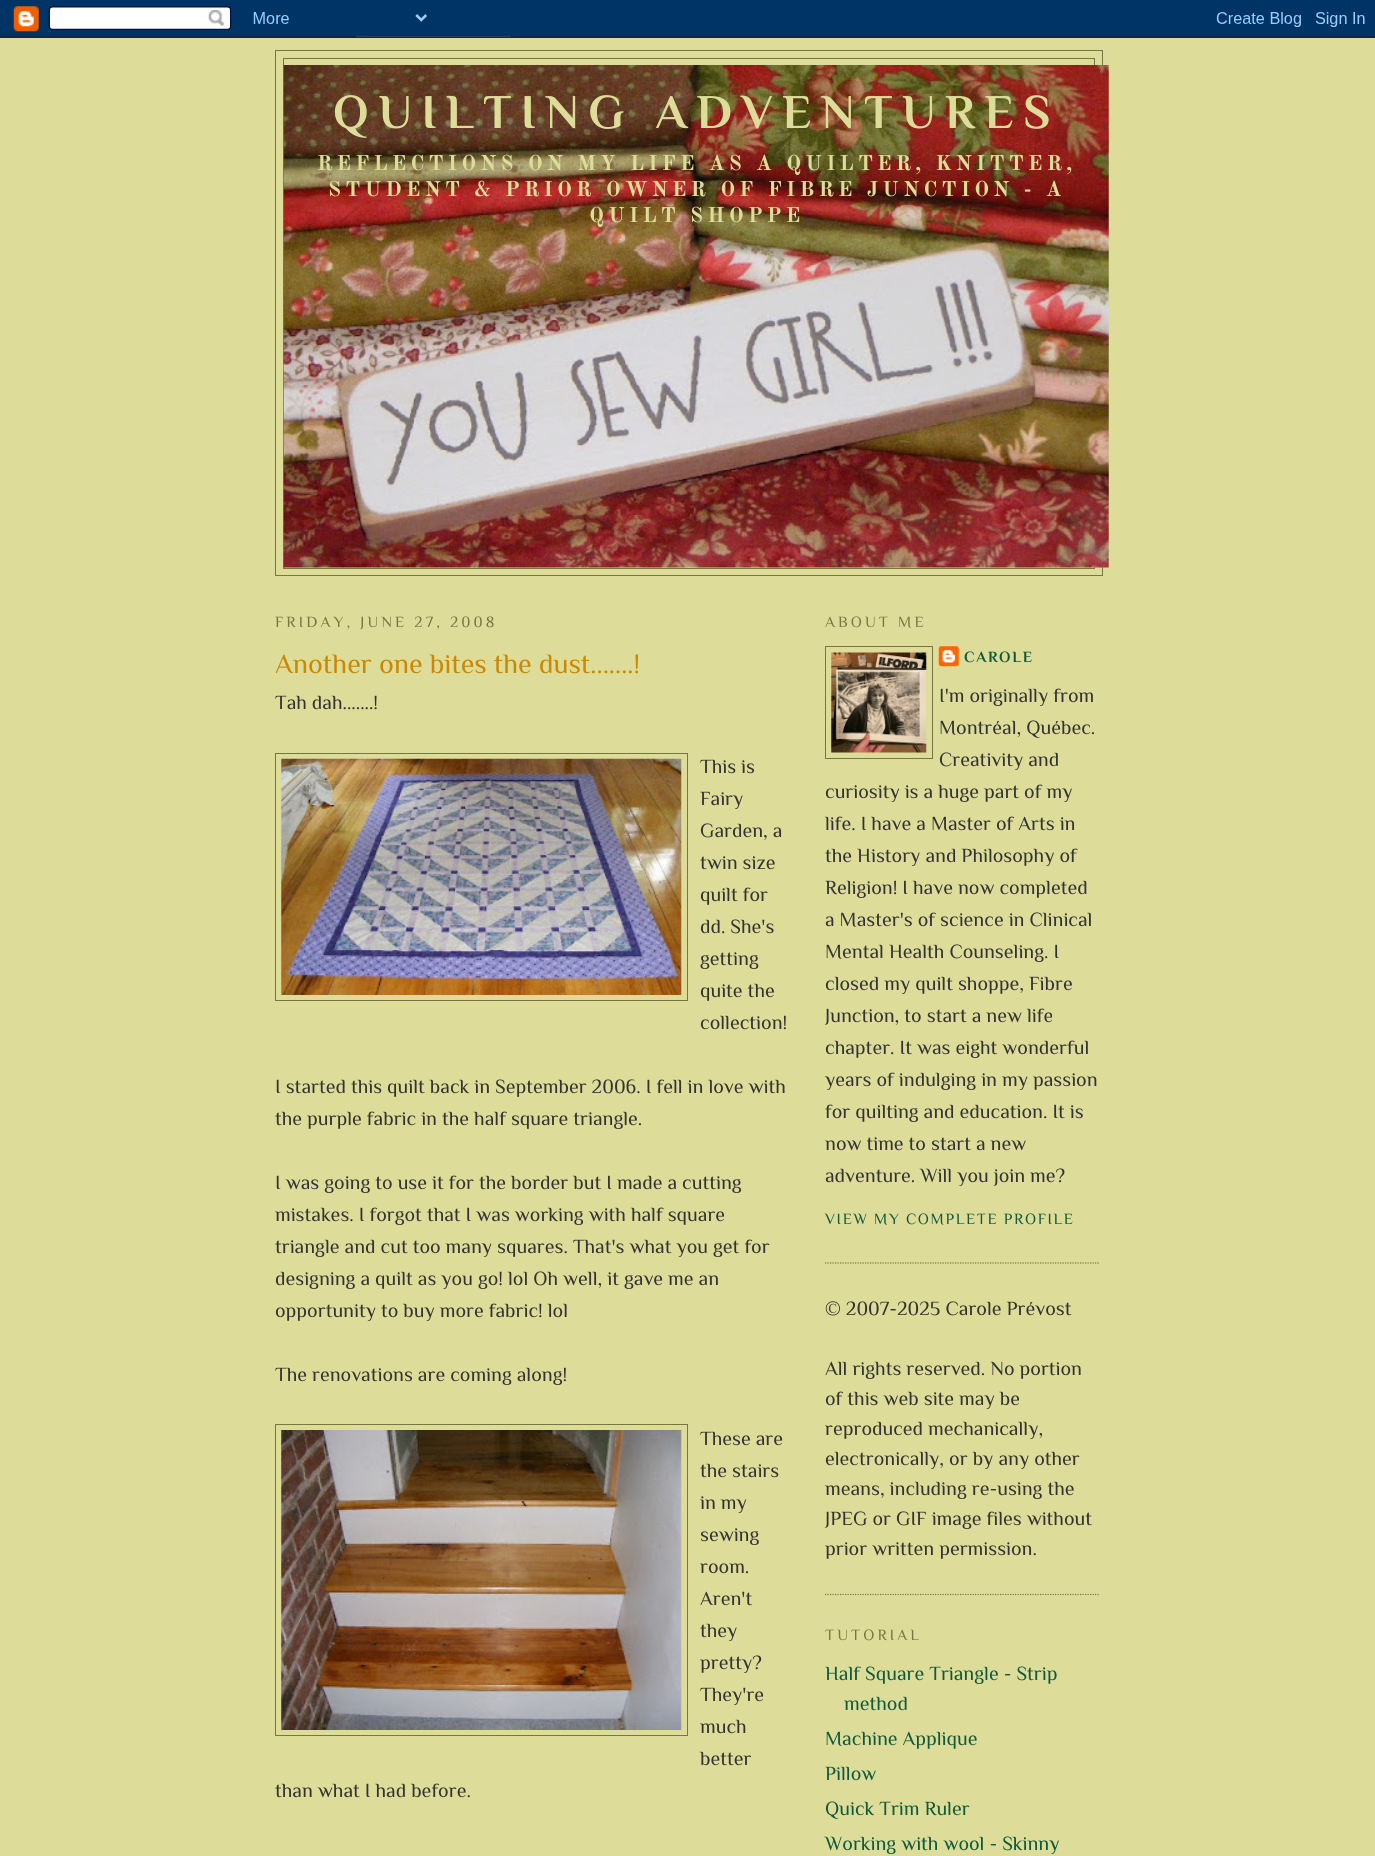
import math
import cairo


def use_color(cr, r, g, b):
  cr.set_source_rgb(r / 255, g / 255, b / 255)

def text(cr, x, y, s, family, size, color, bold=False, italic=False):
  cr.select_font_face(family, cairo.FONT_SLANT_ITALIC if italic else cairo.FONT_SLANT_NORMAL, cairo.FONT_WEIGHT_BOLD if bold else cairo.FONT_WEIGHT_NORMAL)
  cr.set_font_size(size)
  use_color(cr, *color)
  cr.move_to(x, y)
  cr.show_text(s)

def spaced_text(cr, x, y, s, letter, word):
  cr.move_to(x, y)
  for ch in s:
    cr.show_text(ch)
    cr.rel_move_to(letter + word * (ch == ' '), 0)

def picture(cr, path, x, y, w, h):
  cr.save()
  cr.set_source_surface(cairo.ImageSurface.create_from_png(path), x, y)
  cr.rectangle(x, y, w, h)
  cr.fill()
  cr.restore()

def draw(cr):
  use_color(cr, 221, 221, 153)
  cr.paint()
  picture(cr, "img_01.png", 0, 0, 1375, 38)
  cr.rectangle(275.5, 50.5, 827, 525)
  use_color(cr, 119, 119, 68)
  cr.set_line_width(1)
  cr.stroke()
  cr.rectangle(283.5, 58.5, 811, 510)
  cr.stroke()
  picture(cr, "img_02.png", 283, 65, 826, 503)
  cr.rectangle(275.5, 753.5, 412, 247)
  cr.stroke()
  picture(cr, "img_03.png", 281, 758, 401, 237)
  cr.rectangle(275.5, 1424.5, 412, 311)
  cr.stroke()
  picture(cr, "img_04.png", 281, 1430, 401, 300)
  cr.new_path()
  cr.move_to(825, 1263)
  cr.line_to(1100, 1263)
  cr.set_line_width(1.2)
  cr.set_dash([1.25, 1.25])
  cr.stroke()
  cr.rectangle(825.5, 646.5, 107, 112)
  cr.set_line_width(1)
  cr.set_dash([])
  cr.stroke()
  picture(cr, "img_05.png", 831, 652, 96, 101)
  picture(cr, "img_06.png", 938, 646, 21, 21)
  cr.new_path()
  cr.move_to(825, 1594.5)
  cr.line_to(1100, 1594.5)
  cr.set_line_width(1.2)
  cr.set_dash([1.25, 1.25])
  cr.stroke()
  cr.select_font_face("Philosopher", cairo.FONT_SLANT_NORMAL, cairo.FONT_WEIGHT_BOLD)
  cr.set_font_size(48.4)
  use_color(cr, 221, 221, 153)
  spaced_text(cr, 333, 128, "QUILTING ADVENTURES", 9.7, 0)
  cr.select_font_face("Old Standard TT", cairo.FONT_SLANT_NORMAL, cairo.FONT_WEIGHT_BOLD)
  cr.set_font_size(21)
  spaced_text(cr, 317, 170, "REFLECTIONS ON MY LIFE AS A QUILTER, KNITTER,", 4.2, 0)
  spaced_text(cr, 328, 196, "STUDENT & PRIOR OWNER OF FIBRE JUNCTION - A", 4.2, 0)
  spaced_text(cr, 589, 222, "QUILT SHOPPE", 4.2, 0)
  cr.select_font_face("Philosopher")
  cr.set_font_size(15.6)
  use_color(cr, 119, 119, 68)
  spaced_text(cr, 275, 627, "FRIDAY, JUNE 27, 2008", 3.1, 0)
  text(cr, 275, 673, "Another one bites the dust.......!", "Philosopher", 28, (204, 136, 0))
  text(cr, 275, 709, "Tah dah.......!", "Philosopher", 20, (51, 51, 51))
  text(cr, 700, 773, "This is", "Philosopher", 20, (51, 51, 51))
  text(cr, 700, 805, "Fairy", "Philosopher", 20, (51, 51, 51))
  text(cr, 700, 837, "Garden, a", "Philosopher", 20, (51, 51, 51))
  text(cr, 700, 869, "twin size", "Philosopher", 20, (51, 51, 51))
  text(cr, 700, 901, "quilt for", "Philosopher", 20, (51, 51, 51))
  text(cr, 700, 933, "dd. She's", "Philosopher", 20, (51, 51, 51))
  text(cr, 700, 965, "getting", "Philosopher", 20, (51, 51, 51))
  text(cr, 700, 997, "quite the", "Philosopher", 20, (51, 51, 51))
  text(cr, 700, 1029, "collection!", "Philosopher", 20, (51, 51, 51))
  text(cr, 275, 1093, "I started this quilt back in September 2006. I fell in love with", "Philosopher", 20, (51, 51, 51))
  text(cr, 275, 1125, "the purple fabric in the half square triangle.", "Philosopher", 20, (51, 51, 51))
  text(cr, 275, 1189, "I was going to use it for the border but I made a cutting", "Philosopher", 20, (51, 51, 51))
  text(cr, 275, 1221, "mistakes. I forgot that I was working with half square", "Philosopher", 20, (51, 51, 51))
  text(cr, 275, 1253, "triangle and cut too many squares. That's what you get for", "Philosopher", 20, (51, 51, 51))
  text(cr, 275, 1285, "designing a quilt as you go! lol Oh well, it gave me an", "Philosopher", 20, (51, 51, 51))
  text(cr, 275, 1317, "opportunity to buy more fabric! lol", "Philosopher", 20, (51, 51, 51))
  text(cr, 275, 1381, "The renovations are coming along!", "Philosopher", 20, (51, 51, 51))
  text(cr, 700, 1445, "These are", "Philosopher", 20, (51, 51, 51))
  text(cr, 700, 1477, "the stairs", "Philosopher", 20, (51, 51, 51))
  text(cr, 700, 1509, "in my", "Philosopher", 20, (51, 51, 51))
  text(cr, 700, 1541, "sewing", "Philosopher", 20, (51, 51, 51))
  text(cr, 700, 1573, "room.", "Philosopher", 20, (51, 51, 51))
  text(cr, 700, 1605, "Aren't", "Philosopher", 20, (51, 51, 51))
  text(cr, 700, 1637, "they", "Philosopher", 20, (51, 51, 51))
  text(cr, 700, 1669, "pretty?", "Philosopher", 20, (51, 51, 51))
  text(cr, 700, 1701, "They're", "Philosopher", 20, (51, 51, 51))
  text(cr, 700, 1733, "much", "Philosopher", 20, (51, 51, 51))
  text(cr, 700, 1765, "better", "Philosopher", 20, (51, 51, 51))
  text(cr, 275, 1797, "than what I had before.", "Philosopher", 20, (51, 51, 51))
  cr.set_font_size(15.6)
  use_color(cr, 119, 119, 68)
  spaced_text(cr, 825, 627, "ABOUT ME", 3.1, 0)
  cr.select_font_face("Philosopher", cairo.FONT_SLANT_NORMAL, cairo.FONT_WEIGHT_BOLD)
  use_color(cr, 17, 89, 60)
  spaced_text(cr, 964, 662, "CAROLE", 1.6, 0)
  text(cr, 939, 702, "I'm originally from", "Philosopher", 20, (51, 51, 51))
  text(cr, 939, 734, "Montréal, Québec.", "Philosopher", 20, (51, 51, 51))
  text(cr, 939, 766, "Creativity and", "Philosopher", 20, (51, 51, 51))
  text(cr, 825, 798, "curiosity is a huge part of my", "Philosopher", 20, (51, 51, 51))
  text(cr, 825, 830, "life. I have a Master of Arts in", "Philosopher", 20, (51, 51, 51))
  text(cr, 825, 862, "the History and Philosophy of", "Philosopher", 20, (51, 51, 51))
  text(cr, 825, 894, "Religion! I have now completed", "Philosopher", 20, (51, 51, 51))
  text(cr, 825, 926, "a Master's of science in Clinical", "Philosopher", 20, (51, 51, 51))
  text(cr, 825, 958, "Mental Health Counseling. I", "Philosopher", 20, (51, 51, 51))
  text(cr, 825, 990, "closed my quilt shoppe, Fibre", "Philosopher", 20, (51, 51, 51))
  text(cr, 825, 1022, "Junction, to start a new life", "Philosopher", 20, (51, 51, 51))
  text(cr, 825, 1054, "chapter. It was eight wonderful", "Philosopher", 20, (51, 51, 51))
  text(cr, 825, 1086, "years of indulging in my passion", "Philosopher", 20, (51, 51, 51))
  text(cr, 825, 1118, "for quilting and education. It is", "Philosopher", 20, (51, 51, 51))
  text(cr, 825, 1150, "now time to start a new", "Philosopher", 20, (51, 51, 51))
  text(cr, 825, 1182, "adventure. Will you join me?", "Philosopher", 20, (51, 51, 51))
  cr.set_font_size(15.6)
  use_color(cr, 17, 89, 60)
  spaced_text(cr, 825, 1224, "VIEW MY COMPLETE PROFILE", 1.6, 0)
  text(cr, 825, 1315, "© 2007-2025 Carole Prévost", "Philosopher", 20, (51, 51, 51))
  text(cr, 825, 1375, "All rights reserved. No portion", "Philosopher", 20, (51, 51, 51))
  text(cr, 825, 1405, "of this web site may be", "Philosopher", 20, (51, 51, 51))
  text(cr, 825, 1435, "reproduced mechanically,", "Philosopher", 20, (51, 51, 51))
  text(cr, 825, 1465, "electronically, or by any other", "Philosopher", 20, (51, 51, 51))
  text(cr, 825, 1495, "means, including re-using the", "Philosopher", 20, (51, 51, 51))
  text(cr, 825, 1525, "JPEG or GIF image files without", "Philosopher", 20, (51, 51, 51))
  text(cr, 825, 1555, "prior written permission.", "Philosopher", 20, (51, 51, 51))
  cr.set_font_size(15.6)
  use_color(cr, 119, 119, 68)
  spaced_text(cr, 825, 1640, "TUTORIAL", 3.1, 0)
  text(cr, 825, 1680, "Half Square Triangle - Strip", "Philosopher", 20, (17, 89, 60))
  text(cr, 844, 1710, "method", "Philosopher", 20, (17, 89, 60))
  text(cr, 825, 1745, "Machine Applique", "Philosopher", 20, (17, 89, 60))
  text(cr, 825, 1780, "Pillow", "Philosopher", 20, (17, 89, 60))
  text(cr, 825, 1815, "Quick Trim Ruler", "Philosopher", 20, (17, 89, 60))
  text(cr, 825, 1850, "Working with wool - Skinny", "Philosopher", 20, (17, 89, 60))


surface = cairo.ImageSurface(cairo.FORMAT_RGB24, 1375, 1856)
cr = cairo.Context(surface)
options = cairo.FontOptions()
options.set_hint_metrics(cairo.HINT_METRICS_OFF)
options.set_hint_style(cairo.HINT_STYLE_NONE)
cr.set_font_options(options)
cr.set_miter_limit(4)
draw(cr)
surface.write_to_png("out.png")
